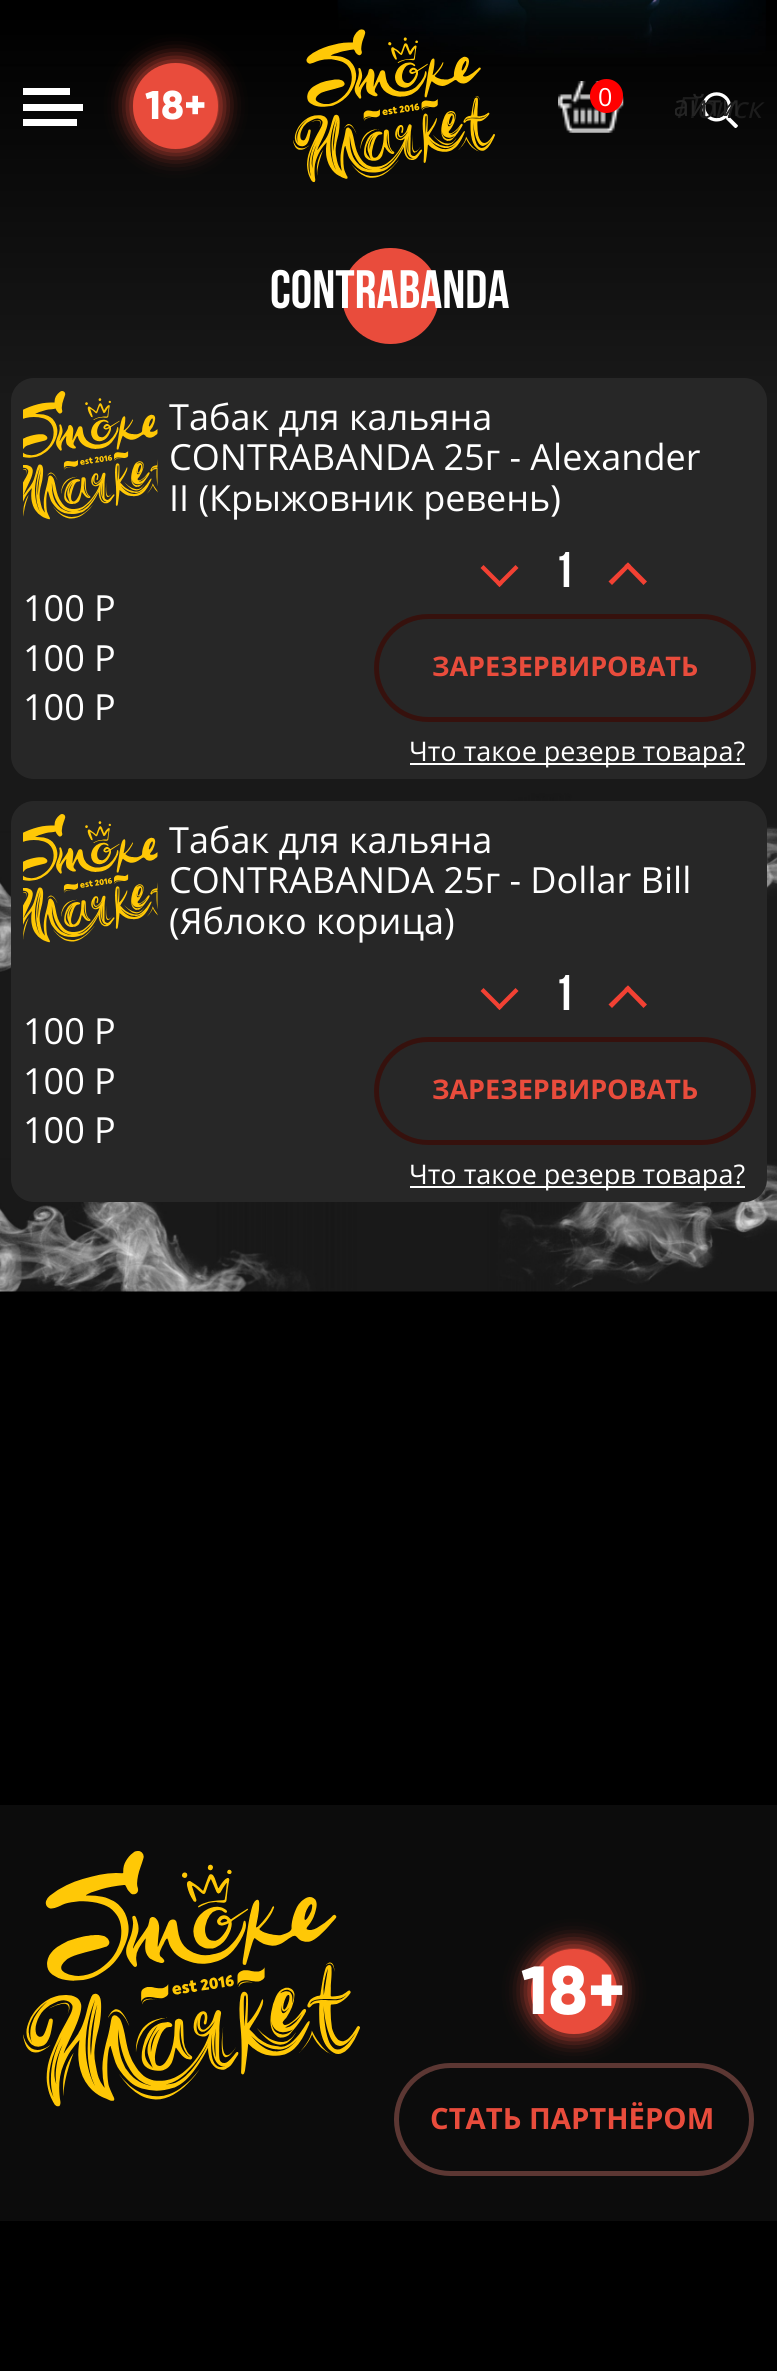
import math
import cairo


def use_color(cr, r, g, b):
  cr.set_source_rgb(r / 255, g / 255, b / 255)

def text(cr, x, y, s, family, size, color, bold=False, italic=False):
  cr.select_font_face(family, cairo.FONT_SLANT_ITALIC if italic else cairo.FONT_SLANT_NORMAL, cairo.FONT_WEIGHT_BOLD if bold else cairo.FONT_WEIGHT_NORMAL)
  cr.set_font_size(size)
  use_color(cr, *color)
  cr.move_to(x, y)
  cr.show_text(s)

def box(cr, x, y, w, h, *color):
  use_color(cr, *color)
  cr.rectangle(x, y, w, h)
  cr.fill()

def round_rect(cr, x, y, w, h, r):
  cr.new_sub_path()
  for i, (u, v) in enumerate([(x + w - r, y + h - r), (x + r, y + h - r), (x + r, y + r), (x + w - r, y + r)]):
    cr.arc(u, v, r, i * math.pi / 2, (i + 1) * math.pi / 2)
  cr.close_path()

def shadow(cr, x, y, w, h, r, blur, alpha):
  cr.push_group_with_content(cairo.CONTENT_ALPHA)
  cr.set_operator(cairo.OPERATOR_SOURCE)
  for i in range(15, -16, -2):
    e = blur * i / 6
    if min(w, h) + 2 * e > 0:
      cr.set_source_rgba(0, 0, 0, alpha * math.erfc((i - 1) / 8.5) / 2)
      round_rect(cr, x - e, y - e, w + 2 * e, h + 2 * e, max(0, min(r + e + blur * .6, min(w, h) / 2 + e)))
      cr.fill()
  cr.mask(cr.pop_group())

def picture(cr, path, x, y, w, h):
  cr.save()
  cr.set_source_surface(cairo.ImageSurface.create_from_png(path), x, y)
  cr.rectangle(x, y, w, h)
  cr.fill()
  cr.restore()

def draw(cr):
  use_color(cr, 0, 0, 0)
  cr.paint()
  picture(cr, "img_04.png", 0, 0, 777, 1292)
  box(cr, 23, 104, 60, 7, 255, 255, 255)
  box(cr, 23, 88, 47, 7, 255, 255, 255)
  box(cr, 23, 119, 54, 7, 255, 255, 255)
  use_color(cr, 233, 76, 60)
  shadow(cr, 131, 61, 90, 90, 45, 11, 1)
  use_color(cr, 233, 76, 60)
  round_rect(cr, 133, 63, 85, 86, 42.5)
  cr.fill()
  picture(cr, "img_01.png", 293, 29, 202, 154)
  picture(cr, "img_02.png", 558, 81, 66, 52)
  use_color(cr, 255, 0, 0)
  round_rect(cr, 590, 79, 33, 34, 16.5)
  cr.fill()
  picture(cr, "img_03.png", 702, 92, 36, 36)
  use_color(cr, 233, 76, 60)
  round_rect(cr, 342, 248, 97, 96, 48)
  cr.fill()
  use_color(cr, 39, 39, 39)
  round_rect(cr, 11, 378, 756, 401, 23)
  cr.fill()
  picture(cr, "img_05.png", 23, 391, 135, 129)
  use_color(cr, 242, 65, 51)
  cr.new_path()
  cr.move_to(515.5, 565)
  cr.line_to(518.5, 568)
  cr.line_to(499.5, 587)
  cr.line_to(496.5, 584)
  cr.close_path()
  cr.fill()
  cr.new_path()
  cr.move_to(483.5, 565)
  cr.line_to(502.5, 584)
  cr.line_to(499.5, 587)
  cr.line_to(480.5, 568)
  cr.close_path()
  cr.fill()
  cr.new_path()
  cr.move_to(612, 585)
  cr.line_to(608.5, 581.5)
  cr.line_to(628, 562.5)
  cr.line_to(631, 565.5)
  cr.close_path()
  cr.fill()
  cr.new_path()
  cr.move_to(643.5, 585)
  cr.line_to(624.5, 565.5)
  cr.line_to(628, 562.5)
  cr.line_to(647, 581.5)
  cr.close_path()
  cr.fill()
  round_rect(cr, 376.5, 616.5, 377, 103, 51.5)
  use_color(cr, 54, 17, 13)
  cr.set_line_width(5)
  cr.stroke()
  box(cr, 410, 763, 335, 2, 255, 255, 255)
  use_color(cr, 39, 39, 39)
  round_rect(cr, 11, 801, 756, 401, 23)
  cr.fill()
  picture(cr, "img_06.png", 23, 814, 135, 129)
  use_color(cr, 242, 65, 51)
  cr.new_path()
  cr.move_to(515.5, 988)
  cr.line_to(518.5, 991)
  cr.line_to(499.5, 1010)
  cr.line_to(496.5, 1007)
  cr.close_path()
  cr.fill()
  cr.new_path()
  cr.move_to(483.5, 988)
  cr.line_to(502.5, 1007)
  cr.line_to(499.5, 1010)
  cr.line_to(480.5, 991)
  cr.close_path()
  cr.fill()
  cr.new_path()
  cr.move_to(612, 1008)
  cr.line_to(608.5, 1004.5)
  cr.line_to(628, 985.5)
  cr.line_to(631, 988.5)
  cr.close_path()
  cr.fill()
  cr.new_path()
  cr.move_to(643.5, 1008)
  cr.line_to(624.5, 988.5)
  cr.line_to(628, 985.5)
  cr.line_to(647, 1004.5)
  cr.close_path()
  cr.fill()
  round_rect(cr, 376.5, 1039.5, 377, 103, 51.5)
  use_color(cr, 54, 17, 13)
  cr.stroke()
  box(cr, 410, 1186, 335, 2, 255, 255, 255)
  box(cr, 0, 1805, 777, 416, 12, 12, 12)
  picture(cr, "img_07.png", 23, 1851, 337, 256)
  round_rect(cr, 396.5, 2065.5, 355, 108, 54)
  use_color(cr, 92, 55, 51)
  cr.stroke()
  use_color(cr, 233, 76, 60)
  shadow(cr, 529, 1946, 90, 90, 45, 11, 1)
  use_color(cr, 233, 76, 60)
  round_rect(cr, 531, 1949, 86, 85, 42.5)
  cr.fill()
  text(cr, 145, 119, "18+", "Gilroy ExtraBold", 40, (255, 255, 255))
  text(cr, 598, 106, "0", "Open Sans", 25, (255, 255, 255))
  text(cr, 675, 118, "Поиск", "Open Sans", 29.25, (28, 28, 28), italic=True)
  cr.save()
  cr.rectangle(675, 72, 90, 68)
  cr.clip()
  text(cr, 673, 116, "айти", "Open Sans", 29.25, (37, 37, 37))
  cr.restore()
  text(cr, 270, 308, "CONTRABANDA", "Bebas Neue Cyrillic", 54, (255, 255, 255))
  text(cr, 169, 430, "Табак для кальяна", "Open Sans", 36, (255, 255, 255))
  text(cr, 169, 470, "CONTRABANDA 25г - Alexander", "Open Sans", 36, (255, 255, 255))
  text(cr, 169, 511, "II (Крыжовник ревень)", "Open Sans", 36, (255, 255, 255))
  text(cr, 23, 621, "100 Р", "Open Sans", 36, (255, 255, 255))
  text(cr, 23, 671, "100 Р", "Open Sans", 36, (255, 255, 255))
  text(cr, 23, 720, "100 Р", "Open Sans", 36, (255, 255, 255))
  text(cr, 554, 587, "1", "Bebas Neue Cyrillic", 50, (255, 255, 255))
  text(cr, 432, 676, "ЗАРЕЗЕРВИРОВАТЬ", "Open Sans", 27, (233, 76, 60), bold=True)
  text(cr, 409, 761, "Что такое резерв товара?", "Open Sans", 27, (255, 255, 255))
  text(cr, 169, 853, "Табак для кальяна", "Open Sans", 36, (255, 255, 255))
  text(cr, 169, 893, "CONTRABANDA 25г - Dollar Bill", "Open Sans", 36, (255, 255, 255))
  text(cr, 169, 934, "(Яблоко корица)", "Open Sans", 36, (255, 255, 255))
  text(cr, 23, 1044, "100 Р", "Open Sans", 36, (255, 255, 255))
  text(cr, 23, 1094, "100 Р", "Open Sans", 36, (255, 255, 255))
  text(cr, 23, 1143, "100 Р", "Open Sans", 36, (255, 255, 255))
  text(cr, 554, 1010, "1", "Bebas Neue Cyrillic", 50, (255, 255, 255))
  text(cr, 432, 1099, "ЗАРЕЗЕРВИРОВАТЬ", "Open Sans", 27, (233, 76, 60), bold=True)
  text(cr, 409, 1184, "Что такое резерв товара?", "Open Sans", 27, (255, 255, 255))
  text(cr, 521, 2014, "18+", "Gilroy ExtraBold", 68, (255, 255, 255))
  text(cr, 430, 2129, "СТАТЬ ПАРТНЁРОМ", "Open Sans", 29.25, (233, 76, 60), bold=True)


surface = cairo.ImageSurface(cairo.FORMAT_RGB24, 777, 2371)
cr = cairo.Context(surface)
options = cairo.FontOptions()
options.set_hint_metrics(cairo.HINT_METRICS_OFF)
options.set_hint_style(cairo.HINT_STYLE_NONE)
cr.set_font_options(options)
cr.set_miter_limit(4)
draw(cr)
surface.write_to_png("out.png")
